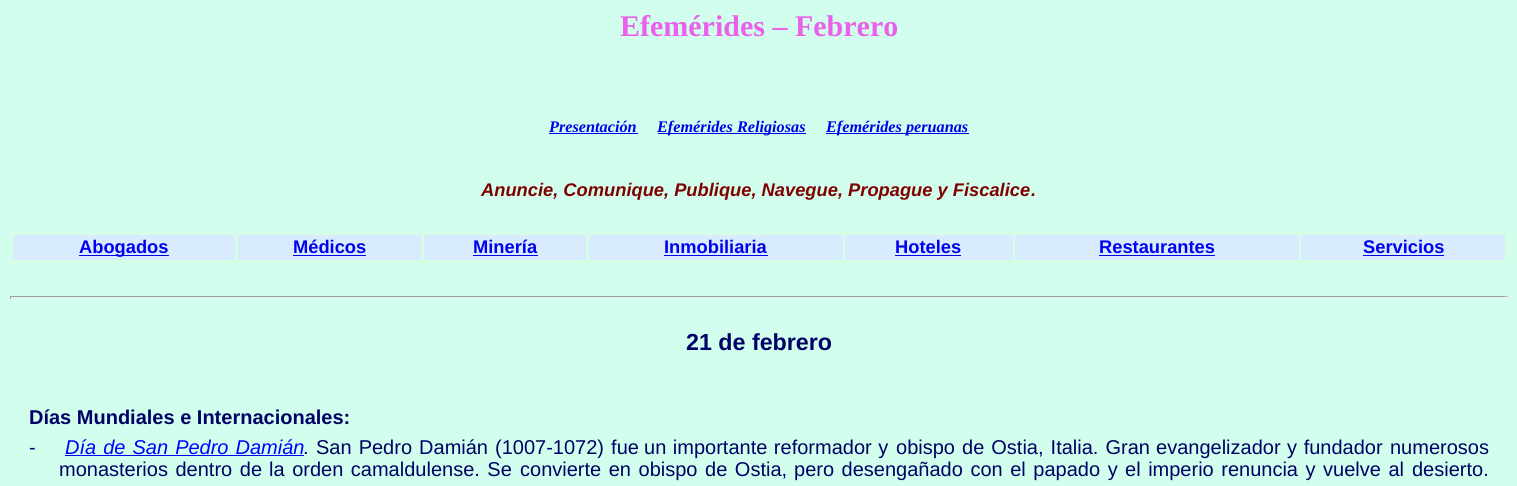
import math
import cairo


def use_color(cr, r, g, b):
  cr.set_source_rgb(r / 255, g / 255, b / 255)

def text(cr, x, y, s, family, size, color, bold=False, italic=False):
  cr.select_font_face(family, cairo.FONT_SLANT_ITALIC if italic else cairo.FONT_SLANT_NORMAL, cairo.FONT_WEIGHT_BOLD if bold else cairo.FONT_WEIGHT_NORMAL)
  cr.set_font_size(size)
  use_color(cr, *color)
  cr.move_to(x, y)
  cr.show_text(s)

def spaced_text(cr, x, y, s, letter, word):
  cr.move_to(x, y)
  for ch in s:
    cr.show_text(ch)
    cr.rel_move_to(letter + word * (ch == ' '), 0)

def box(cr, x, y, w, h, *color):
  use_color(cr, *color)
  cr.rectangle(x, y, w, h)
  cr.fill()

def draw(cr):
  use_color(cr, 210, 255, 237)
  cr.paint()
  box(cr, 549, 133, 89, 1, 0, 0, 238)
  box(cr, 658, 133, 148, 1, 0, 0, 238)
  box(cr, 826, 133, 143, 1, 0, 0, 238)
  box(cr, 10, 233, 1498, 30, 213, 255, 226)
  box(cr, 13, 235, 222, 25, 217, 236, 255)
  box(cr, 79, 255, 90, 1, 0, 0, 238)
  box(cr, 238, 235, 183, 25, 217, 236, 255)
  box(cr, 293, 255, 73, 1, 0, 0, 238)
  box(cr, 424, 235, 162, 25, 217, 236, 255)
  box(cr, 473, 255, 65, 1, 0, 0, 238)
  box(cr, 589, 235, 254, 25, 217, 236, 255)
  box(cr, 664, 255, 104, 1, 0, 0, 238)
  box(cr, 845, 235, 168, 25, 217, 236, 255)
  box(cr, 895, 255, 66, 1, 0, 0, 238)
  box(cr, 1015, 235, 284, 25, 217, 236, 255)
  box(cr, 1099, 255, 116, 1, 0, 0, 238)
  box(cr, 1301, 235, 204, 25, 217, 236, 255)
  box(cr, 1363, 255, 81, 1, 0, 0, 238)
  box(cr, 10, 296, 1498, 1, 159, 159, 159)
  box(cr, 1506, 296, 1, 3, 238, 238, 238)
  box(cr, 10, 298, 1498, 1, 238, 238, 238)
  box(cr, 10, 296, 1, 3, 159, 159, 159)
  box(cr, 65, 455, 239, 1, 0, 0, 255)
  text(cr, 620, 36, "Efemérides – Febrero", "Liberation Serif", 30, (234, 96, 234), bold=True)
  text(cr, 549, 132, "Presentación", "Liberation Serif", 16.25, (0, 0, 238), bold=True, italic=True)
  text(cr, 657, 132, "Efemérides Religiosas", "Liberation Serif", 16.25, (0, 0, 238), bold=True, italic=True)
  text(cr, 826, 132, "Efemérides peruanas", "Liberation Serif", 16.25, (0, 0, 238), bold=True, italic=True)
  text(cr, 481, 196, "Anuncie, Comunique, Publique, Navegue, Propague y Fiscalice", "Liberation Sans", 18.3, (128, 0, 0), bold=True, italic=True)
  text(cr, 1031, 196, ".", "Liberation Sans", 18.3, (128, 0, 0), bold=True, italic=True)
  text(cr, 79, 253, "Abogados", "Liberation Sans", 18.3, (0, 0, 238), bold=True)
  text(cr, 293, 253, "Médicos", "Liberation Sans", 18.3, (0, 0, 238), bold=True)
  text(cr, 473, 253, "Minería", "Liberation Sans", 18.3, (0, 0, 238), bold=True)
  text(cr, 664, 253, "Inmobiliaria", "Liberation Sans", 18.3, (0, 0, 238), bold=True)
  text(cr, 895, 253, "Hoteles", "Liberation Sans", 18.3, (0, 0, 238), bold=True)
  text(cr, 1099, 253, "Restaurantes", "Liberation Sans", 18.3, (0, 0, 238), bold=True)
  text(cr, 1363, 253, "Servicios", "Liberation Sans", 18.3, (0, 0, 238), bold=True)
  text(cr, 686, 350, "21 de febrero", "Liberation Sans", 23.25, (0, 0, 102), bold=True)
  text(cr, 29, 424, "Días Mundiales e Internacionales:", "Liberation Sans", 20, (0, 0, 102), bold=True)
  text(cr, 29, 454, "-", "Liberation Sans", 20, (0, 0, 102))
  cr.select_font_face("Liberation Sans", cairo.FONT_SLANT_ITALIC)
  use_color(cr, 0, 0, 255)
  spaced_text(cr, 65, 454, "Día de San Pedro Damián", 0, 1.5)
  cr.select_font_face("Liberation Sans")
  use_color(cr, 0, 0, 102)
  spaced_text(cr, 316, 454, "San Pedro Damián (1007-1072) fue", 0, 1.5)
  spaced_text(cr, 644, 454, "un importante reformador y", 0, 1)
  spaced_text(cr, 896, 454, "obispo de Ostia, Italia. Gran", 0, 1.5)
  spaced_text(cr, 1156, 454, "evangelizador y fundador", 0, 1)
  text(cr, 1390, 454, "numerosos", "Liberation Sans", 20, (0, 0, 102))
  text(cr, 303, 454, ".", "Liberation Sans", 20, (0, 0, 102))
  spaced_text(cr, 59, 476, "monasterios dentro de", 0, 2)
  spaced_text(cr, 269, 476, "la orden camaldulense. Se", 0, 2)
  spaced_text(cr, 520, 476, "convierte en obispo de Ostia,", 0, 2)
  spaced_text(cr, 794, 476, "pero desengañado con el papado y", 0, 2)
  spaced_text(cr, 1125, 476, "el imperio renuncia y vuelve al", 0, 2)
  text(cr, 1412, 476, "desierto.", "Liberation Sans", 20, (0, 0, 102))


surface = cairo.ImageSurface(cairo.FORMAT_RGB24, 1517, 486)
cr = cairo.Context(surface)
options = cairo.FontOptions()
options.set_hint_metrics(cairo.HINT_METRICS_OFF)
options.set_hint_style(cairo.HINT_STYLE_NONE)
cr.set_font_options(options)
cr.set_miter_limit(4)
draw(cr)
surface.write_to_png("out.png")
